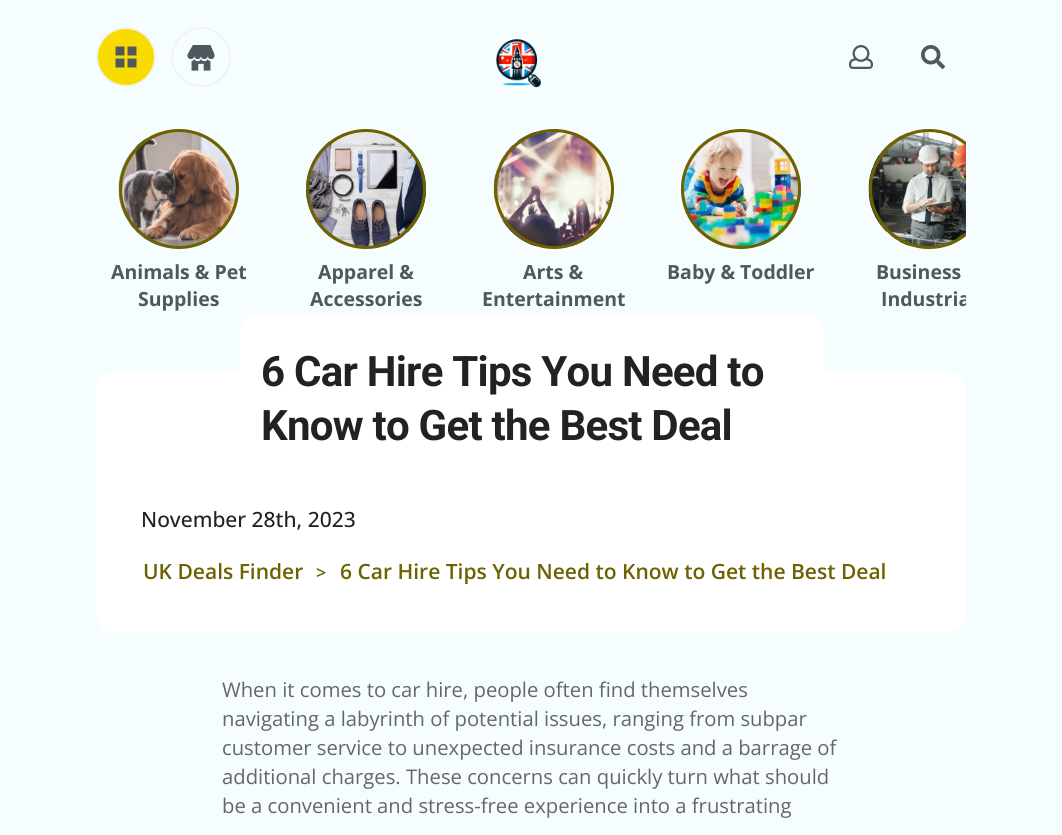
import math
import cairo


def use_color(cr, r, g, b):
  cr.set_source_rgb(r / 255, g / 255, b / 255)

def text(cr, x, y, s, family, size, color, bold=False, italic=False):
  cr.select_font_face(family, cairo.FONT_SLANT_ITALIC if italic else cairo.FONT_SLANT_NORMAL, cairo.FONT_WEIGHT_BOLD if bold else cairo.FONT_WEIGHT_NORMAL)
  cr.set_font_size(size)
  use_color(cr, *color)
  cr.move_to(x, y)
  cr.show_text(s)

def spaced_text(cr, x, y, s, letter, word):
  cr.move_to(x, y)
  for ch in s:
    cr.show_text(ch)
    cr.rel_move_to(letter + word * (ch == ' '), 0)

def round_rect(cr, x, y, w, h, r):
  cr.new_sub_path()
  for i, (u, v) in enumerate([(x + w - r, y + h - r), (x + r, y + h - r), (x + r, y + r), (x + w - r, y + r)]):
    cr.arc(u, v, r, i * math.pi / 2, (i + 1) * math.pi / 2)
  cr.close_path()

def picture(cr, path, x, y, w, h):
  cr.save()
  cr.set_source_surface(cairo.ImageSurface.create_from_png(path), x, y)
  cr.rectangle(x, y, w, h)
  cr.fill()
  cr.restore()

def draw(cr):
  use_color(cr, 246, 253, 255)
  cr.paint()
  use_color(cr, 248, 219, 0)
  cr.arc(126, 57, 29, 0, 2 * math.pi)
  cr.fill_preserve()
  use_color(cr, 242, 242, 242)
  cr.stroke()
  picture(cr, "img_01.png", 115, 46, 22, 22)
  cr.arc(201, 57, 29, 0, 2 * math.pi)
  cr.stroke()
  picture(cr, "img_02.png", 187, 45, 28, 26)
  picture(cr, "img_03.png", 496, 39, 45, 49)
  picture(cr, "img_04.png", 849, 45, 24, 24)
  picture(cr, "img_05.png", 921, 45, 24, 24)
  picture(cr, "img_06.png", 118, 132, 121, 114)
  use_color(cr, 109, 97, 0)
  cr.set_fill_rule(cairo.FILL_RULE_EVEN_ODD)
  cr.new_path()
  cr.move_to(179, 129)
  cr.curve_to(212, 129, 239, 156, 239, 189)
  cr.curve_to(239, 222, 212, 249, 179, 249)
  cr.curve_to(146, 249, 119, 222, 119, 189)
  cr.curve_to(119, 156, 146, 129, 179, 129)
  cr.close_path()
  cr.move_to(179, 132)
  cr.curve_to(148, 132, 122, 158, 122, 189)
  cr.curve_to(122, 220, 148, 246, 179, 246)
  cr.curve_to(210, 246, 236, 220, 236, 189)
  cr.curve_to(236, 158, 210, 132, 179, 132)
  cr.close_path()
  cr.fill()
  picture(cr, "img_07.png", 306, 132, 120, 114)
  cr.new_path()
  cr.move_to(366, 129)
  cr.curve_to(399, 129, 426, 156, 426, 189)
  cr.curve_to(426, 222, 399, 249, 366, 249)
  cr.curve_to(333, 249, 306, 222, 306, 189)
  cr.curve_to(306, 156, 333, 129, 366, 129)
  cr.close_path()
  cr.move_to(366, 132)
  cr.curve_to(335, 132, 309, 158, 309, 189)
  cr.curve_to(309, 220, 335, 246, 366, 246)
  cr.curve_to(397, 246, 423, 220, 423, 189)
  cr.curve_to(423, 158, 397, 132, 366, 132)
  cr.close_path()
  cr.fill()
  picture(cr, "img_08.png", 493, 132, 121, 114)
  cr.new_path()
  cr.move_to(554, 129)
  cr.curve_to(587, 129, 614, 156, 614, 189)
  cr.curve_to(614, 222, 587, 249, 554, 249)
  cr.curve_to(521, 249, 494, 222, 494, 189)
  cr.curve_to(494, 156, 521, 129, 554, 129)
  cr.close_path()
  cr.move_to(554, 132)
  cr.curve_to(523, 132, 497, 158, 497, 189)
  cr.curve_to(497, 220, 523, 246, 554, 246)
  cr.curve_to(585, 246, 611, 220, 611, 189)
  cr.curve_to(611, 158, 585, 132, 554, 132)
  cr.close_path()
  cr.fill()
  picture(cr, "img_09.png", 681, 132, 120, 114)
  cr.new_path()
  cr.move_to(741, 129)
  cr.curve_to(774, 129, 801, 156, 801, 189)
  cr.curve_to(801, 222, 774, 249, 741, 249)
  cr.curve_to(708, 249, 681, 222, 681, 189)
  cr.curve_to(681, 156, 708, 129, 741, 129)
  cr.close_path()
  cr.move_to(741, 132)
  cr.curve_to(710, 132, 684, 158, 684, 189)
  cr.curve_to(684, 220, 710, 246, 741, 246)
  cr.curve_to(772, 246, 798, 220, 798, 189)
  cr.curve_to(798, 158, 772, 132, 741, 132)
  cr.close_path()
  cr.fill()
  picture(cr, "img_10.png", 868, 132, 98, 114)
  cr.save()
  cr.set_fill_rule(cairo.FILL_RULE_WINDING)
  cr.rectangle(96, 129, 870, 183)
  cr.clip()
  cr.set_fill_rule(cairo.FILL_RULE_EVEN_ODD)
  cr.new_path()
  cr.move_to(929, 129)
  cr.curve_to(962, 129, 989, 156, 989, 189)
  cr.curve_to(989, 222, 962, 249, 929, 249)
  cr.curve_to(896, 249, 869, 222, 869, 189)
  cr.curve_to(869, 156, 896, 129, 929, 129)
  cr.close_path()
  cr.move_to(929, 132)
  cr.curve_to(898, 132, 872, 158, 872, 189)
  cr.curve_to(872, 220, 898, 246, 929, 246)
  cr.curve_to(960, 246, 986, 220, 986, 189)
  cr.curve_to(986, 158, 960, 132, 929, 132)
  cr.close_path()
  cr.fill()
  cr.restore()
  use_color(cr, 255, 255, 255)
  round_rect(cr, 96, 372, 870, 260, 18)
  cr.fill()
  round_rect(cr, 239, 315, 585, 168, 18)
  cr.fill()
  text(cr, 111, 279, "Animals & Pet", "Open Sans", 19.5, (78, 89, 95), bold=True)
  text(cr, 138, 306, "Supplies", "Open Sans", 19.5, (78, 89, 95), bold=True)
  text(cr, 318, 279, "Apparel &", "Open Sans", 19.5, (78, 89, 95), bold=True)
  text(cr, 310, 306, "Accessories", "Open Sans", 19.5, (78, 89, 95), bold=True)
  text(cr, 523, 279, "Arts &", "Open Sans", 19.5, (78, 89, 95), bold=True)
  text(cr, 482, 306, "Entertainment", "Open Sans", 19.5, (78, 89, 95), bold=True)
  text(cr, 667, 279, "Baby & Toddler", "Open Sans", 19.5, (78, 89, 95), bold=True)
  text(cr, 876, 279, "Business", "Open Sans", 19.5, (78, 89, 95), bold=True)
  cr.save()
  cr.set_fill_rule(cairo.FILL_RULE_WINDING)
  cr.rectangle(96, 129, 870, 183)
  cr.clip()
  text(cr, 881, 306, "Industria", "Open Sans", 19.5, (78, 89, 95), bold=True)
  cr.restore()
  cr.select_font_face("Roboto", cairo.FONT_SLANT_NORMAL, cairo.FONT_WEIGHT_BOLD)
  cr.set_font_size(42)
  use_color(cr, 34, 34, 34)
  spaced_text(cr, 261, 386, "6 Car Hire Tips You Need to", -0.75, 0)
  spaced_text(cr, 261, 440, "Know to Get the Best Deal", -0.75, 0)
  text(cr, 141, 527, "November 28th, 2023", "Open Sans Medium", 21, (34, 34, 34))
  text(cr, 143, 579, "UK Deals Finder", "Open Sans SemiBold", 21, (109, 97, 0))
  text(cr, 316, 579, ">", "Open Sans SemiBold", 18, (109, 97, 0))
  text(cr, 340, 579, "6 Car Hire Tips You Need to Know to Get the Best Deal", "Open Sans SemiBold", 21, (109, 97, 0))
  text(cr, 222, 697, "When it comes to car hire, people often find themselves", "Open Sans", 20.25, (102, 102, 102))
  text(cr, 222, 726, "navigating a labyrinth of potential issues, ranging from subpar", "Open Sans", 20.25, (102, 102, 102))
  text(cr, 222, 755, "customer service to unexpected insurance costs and a barrage of", "Open Sans", 20.25, (102, 102, 102))
  text(cr, 222, 784, "additional charges. These concerns can quickly turn what should", "Open Sans", 20.25, (102, 102, 102))
  text(cr, 222, 813, "be a convenient and stress-free experience into a frustrating", "Open Sans", 20.25, (102, 102, 102))


surface = cairo.ImageSurface(cairo.FORMAT_RGB24, 1062, 835)
cr = cairo.Context(surface)
options = cairo.FontOptions()
options.set_hint_metrics(cairo.HINT_METRICS_OFF)
options.set_hint_style(cairo.HINT_STYLE_NONE)
cr.set_font_options(options)
cr.set_miter_limit(4)
draw(cr)
surface.write_to_png("out.png")
